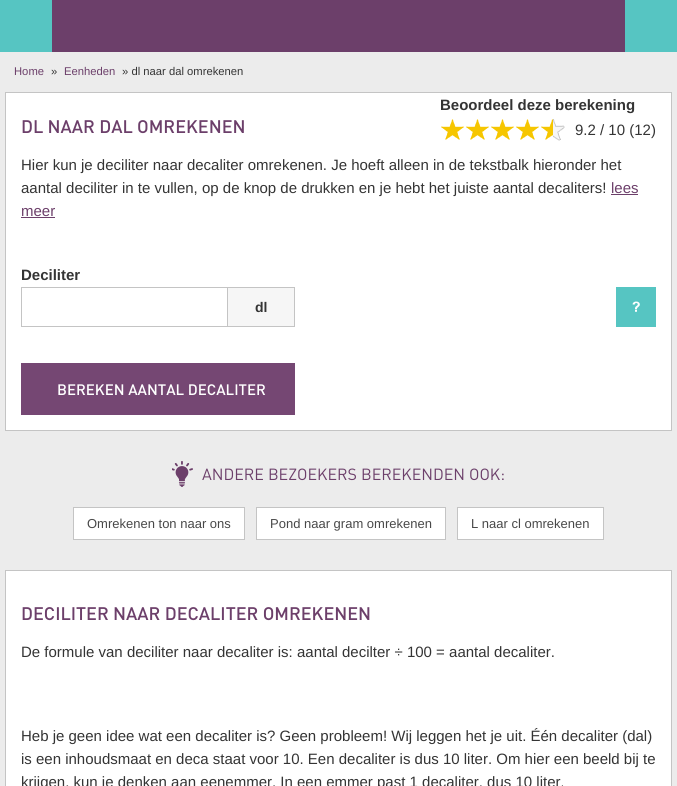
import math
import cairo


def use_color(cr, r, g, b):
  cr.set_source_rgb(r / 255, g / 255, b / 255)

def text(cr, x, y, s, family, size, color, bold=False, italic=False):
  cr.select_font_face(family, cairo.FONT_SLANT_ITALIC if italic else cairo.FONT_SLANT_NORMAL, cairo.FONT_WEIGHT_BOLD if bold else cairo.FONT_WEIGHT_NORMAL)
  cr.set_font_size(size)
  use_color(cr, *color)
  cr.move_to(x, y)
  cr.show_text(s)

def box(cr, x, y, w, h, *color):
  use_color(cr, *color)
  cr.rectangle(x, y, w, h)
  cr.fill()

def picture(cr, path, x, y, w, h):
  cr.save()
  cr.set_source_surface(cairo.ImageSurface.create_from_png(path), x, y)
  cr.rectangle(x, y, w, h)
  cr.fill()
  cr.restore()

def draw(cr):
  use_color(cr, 236, 236, 236)
  cr.paint()
  box(cr, 52, 0, 573, 52, 108, 63, 106)
  box(cr, 0, 0, 52, 52, 86, 197, 194)
  box(cr, 625, 0, 52, 52, 86, 197, 194)
  use_color(cr, 255, 255, 255)
  cr.rectangle(5.5, 92.5, 666, 338)
  cr.fill_preserve()
  use_color(cr, 196, 196, 196)
  cr.set_line_width(1)
  cr.stroke()
  picture(cr, "img_01.png", 441, 119, 12, 21)
  picture(cr, "img_02.png", 453, 119, 11, 21)
  picture(cr, "img_01.png", 466, 119, 12, 21)
  picture(cr, "img_02.png", 478, 119, 11, 21)
  picture(cr, "img_01.png", 491, 119, 12, 21)
  picture(cr, "img_02.png", 503, 119, 11, 21)
  picture(cr, "img_01.png", 516, 119, 12, 21)
  picture(cr, "img_02.png", 528, 119, 11, 21)
  picture(cr, "img_01.png", 541, 119, 12, 21)
  picture(cr, "img_03.png", 553, 119, 12, 22)
  box(cr, 611, 194, 27, 1, 108, 63, 106)
  box(cr, 21, 217, 34, 1, 108, 63, 106)
  cr.rectangle(21.5, 287.5, 206, 39)
  use_color(cr, 196, 196, 196)
  cr.stroke()
  box(cr, 228, 288, 66, 38, 246, 246, 246)
  box(cr, 228, 287, 67, 1, 196, 196, 196)
  box(cr, 294, 287, 1, 40, 196, 196, 196)
  box(cr, 228, 326, 67, 1, 196, 196, 196)
  box(cr, 616, 287, 40, 40, 86, 197, 194)
  picture(cr, "img_04.png", 632, 301, 8, 11)
  box(cr, 21, 363, 274, 52, 117, 71, 115)
  picture(cr, "img_05.png", 172, 461, 21, 26)
  use_color(cr, 255, 255, 255)
  cr.rectangle(73.5, 507.5, 171, 32)
  cr.fill_preserve()
  use_color(cr, 196, 196, 196)
  cr.stroke()
  use_color(cr, 255, 255, 255)
  cr.rectangle(256.5, 507.5, 189, 32)
  cr.fill_preserve()
  use_color(cr, 196, 196, 196)
  cr.stroke()
  use_color(cr, 255, 255, 255)
  cr.rectangle(457.5, 507.5, 146, 32)
  cr.fill_preserve()
  use_color(cr, 196, 196, 196)
  cr.stroke()
  use_color(cr, 255, 255, 255)
  cr.rectangle(5.5, 570.5, 666, 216)
  cr.fill_preserve()
  use_color(cr, 196, 196, 196)
  cr.stroke()
  text(cr, 14, 75, "Home", "Liberation Sans", 11.25, (108, 63, 106))
  text(cr, 51, 75, "»", "Liberation Sans", 11.25, (52, 52, 52))
  text(cr, 64, 75, "Eenheden", "Liberation Sans", 11.25, (108, 63, 106))
  text(cr, 122, 75, "» dl naar dal omrekenen", "Liberation Sans", 11.25, (52, 52, 52))
  text(cr, 21, 133, "DL NAAR DAL OMREKENEN", "DIN Medium", 18, (108, 63, 106))
  text(cr, 440, 110, "Beoordeel deze berekening", "Liberation Sans", 15, (52, 52, 52), bold=True)
  text(cr, 575, 135, "9.2 / 10 (12)", "Liberation Sans", 15, (52, 52, 52))
  text(cr, 21, 170, "Hier kun je deciliter naar decaliter omrekenen. Je hoeft alleen in de tekstbalk hieronder het", "Liberation Sans", 15, (52, 52, 52))
  text(cr, 21, 193, "aantal deciliter in te vullen, op de knop de drukken en je hebt het juiste aantal decaliters!", "Liberation Sans", 15, (52, 52, 52))
  text(cr, 611, 193, "lees", "Liberation Sans", 15, (108, 63, 106))
  text(cr, 21, 216, "meer", "Liberation Sans", 15, (108, 63, 106))
  text(cr, 21, 280, "Deciliter", "Liberation Sans", 15, (52, 52, 52), bold=True)
  text(cr, 255, 312, "dl", "Liberation Sans", 14, (52, 52, 52), bold=True)
  text(cr, 57, 395, "BEREKEN AANTAL DECALITER", "DIN Medium", 15, (255, 255, 255))
  text(cr, 202, 480, "ANDERE BEZOEKERS BEREKENDEN OOK:", "DIN", 16, (108, 63, 106))
  text(cr, 87, 528, "Omrekenen ton naar ons", "Liberation Sans", 13, (72, 72, 72))
  text(cr, 270, 528, "Pond naar gram omrekenen", "Liberation Sans", 13, (72, 72, 72))
  text(cr, 471, 528, "L naar cl omrekenen", "Liberation Sans", 13, (72, 72, 72))
  text(cr, 21, 620, "DECILITER NAAR DECALITER OMREKENEN", "DIN Medium", 18, (108, 63, 106))
  text(cr, 21, 657, "De formule van deciliter naar decaliter is: aantal decilter ÷ 100 = aantal decaliter.", "Liberation Sans", 15, (52, 52, 52))
  text(cr, 21, 741, "Heb je geen idee wat een decaliter is? Geen probleem! Wij leggen het je uit. Één decaliter (dal)", "Liberation Sans", 15, (52, 52, 52))
  text(cr, 21, 764, "is een inhoudsmaat en deca staat voor 10. Een decaliter is dus 10 liter. Om hier een beeld bij te", "Liberation Sans", 15, (52, 52, 52))
  text(cr, 21, 787, "krijgen, kun je denken aan eenemmer. In een emmer past 1 decaliter, dus 10 liter.", "Liberation Sans", 15, (52, 52, 52))


surface = cairo.ImageSurface(cairo.FORMAT_RGB24, 677, 786)
cr = cairo.Context(surface)
options = cairo.FontOptions()
options.set_hint_metrics(cairo.HINT_METRICS_OFF)
options.set_hint_style(cairo.HINT_STYLE_NONE)
cr.set_font_options(options)
cr.set_miter_limit(4)
draw(cr)
surface.write_to_png("out.png")
